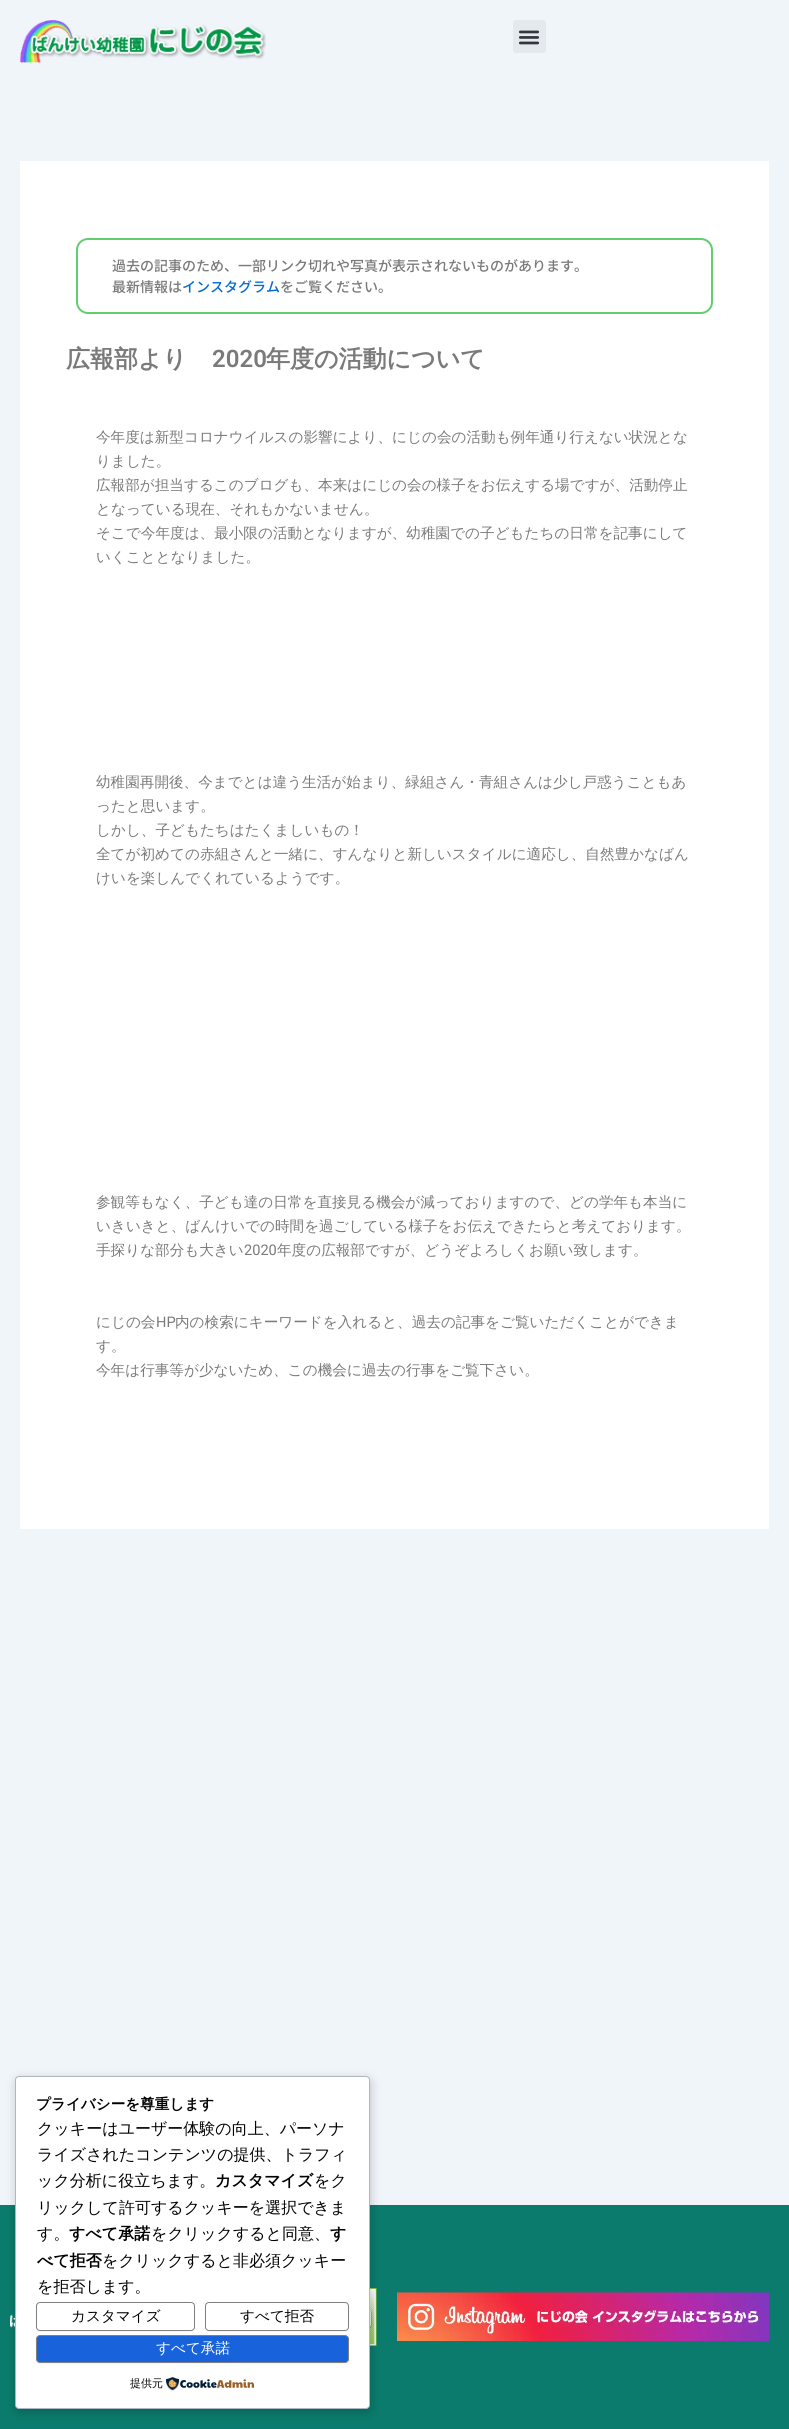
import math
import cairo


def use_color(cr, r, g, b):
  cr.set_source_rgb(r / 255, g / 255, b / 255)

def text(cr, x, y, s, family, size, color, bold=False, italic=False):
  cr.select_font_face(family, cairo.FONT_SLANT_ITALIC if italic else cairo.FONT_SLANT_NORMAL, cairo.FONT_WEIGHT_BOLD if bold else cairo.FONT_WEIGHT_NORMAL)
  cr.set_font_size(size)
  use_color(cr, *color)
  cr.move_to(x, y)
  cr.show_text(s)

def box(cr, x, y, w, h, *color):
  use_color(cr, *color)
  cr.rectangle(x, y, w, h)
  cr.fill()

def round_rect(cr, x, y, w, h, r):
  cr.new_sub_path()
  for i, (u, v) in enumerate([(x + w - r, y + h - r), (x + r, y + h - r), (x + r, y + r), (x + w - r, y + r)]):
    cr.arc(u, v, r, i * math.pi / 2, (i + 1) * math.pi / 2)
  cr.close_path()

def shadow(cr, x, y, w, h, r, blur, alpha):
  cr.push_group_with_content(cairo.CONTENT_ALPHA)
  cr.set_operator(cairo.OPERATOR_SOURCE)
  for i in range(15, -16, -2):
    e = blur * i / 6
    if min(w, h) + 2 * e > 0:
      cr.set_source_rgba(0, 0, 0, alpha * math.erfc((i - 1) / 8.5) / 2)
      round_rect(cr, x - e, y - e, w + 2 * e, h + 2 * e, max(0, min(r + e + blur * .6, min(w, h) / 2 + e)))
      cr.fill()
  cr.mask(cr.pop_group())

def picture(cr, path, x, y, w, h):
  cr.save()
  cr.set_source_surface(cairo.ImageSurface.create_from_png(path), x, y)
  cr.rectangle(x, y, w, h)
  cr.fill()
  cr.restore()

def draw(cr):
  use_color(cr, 240, 245, 250)
  cr.paint()
  picture(cr, "img_01.png", 20, 20, 246, 43)
  use_color(cr, 228, 233, 238)
  round_rect(cr, 513, 20, 33, 33, 3)
  cr.fill()
  picture(cr, "img_02.png", 518, 30, 22, 15)
  box(cr, 20, 161, 749, 1368, 255, 255, 255)
  round_rect(cr, 77, 239, 635, 74, 11)
  use_color(cr, 97, 206, 112)
  cr.stroke()
  box(cr, 0, 2205, 789, 224, 10, 123, 108)
  picture(cr, "img_03.png", 10, 2314, 5, 14)
  picture(cr, "img_04.png", 370, 2288, 7, 58)
  picture(cr, "img_05.png", 397, 2292, 372, 49)
  use_color(cr, 0, 0, 0)
  shadow(cr, 16, 2079, 355, 333, 4, 5, 0.2)
  use_color(cr, 255, 255, 255)
  round_rect(cr, 15.5, 2076.5, 354, 332, 3.5)
  cr.fill_preserve()
  use_color(cr, 171, 184, 195)
  cr.set_line_width(1)
  cr.stroke()
  use_color(cr, 0, 0, 0)
  shadow(cr, 36, 2303, 159, 29, 4, 1, 0.05)
  use_color(cr, 255, 255, 255)
  round_rect(cr, 36.5, 2302.5, 158, 28, 3.5)
  cr.fill_preserve()
  use_color(cr, 128, 128, 128)
  cr.stroke()
  use_color(cr, 0, 0, 0)
  shadow(cr, 205, 2303, 144, 29, 4, 1, 0.05)
  use_color(cr, 255, 255, 255)
  round_rect(cr, 205.5, 2302.5, 143, 28, 3.5)
  cr.fill_preserve()
  use_color(cr, 128, 128, 128)
  cr.stroke()
  use_color(cr, 0, 0, 0)
  shadow(cr, 36, 2336, 313, 28, 4, 1, 0.05)
  use_color(cr, 24, 99, 220)
  round_rect(cr, 36.5, 2335.5, 312, 27, 3.5)
  cr.fill_preserve()
  use_color(cr, 128, 128, 128)
  cr.stroke()
  picture(cr, "img_06.png", 166, 2377, 88, 14)
  text(cr, 112, 271, "過去の記事のため、一部リンク切れや写真が表示されないものがあります。", "Noto Sans JP Medium", 14, (122, 122, 122))
  text(cr, 112, 292, "最新情報は", "Noto Sans JP Medium", 14, (122, 122, 122))
  text(cr, 182, 292, "インスタグラム", "Noto Sans JP Medium", 14, (4, 107, 210))
  text(cr, 280, 292, "をご覧ください。", "Noto Sans JP Medium", 14, (122, 122, 122))
  text(cr, 66, 367, "広報部より", "WenQuanYi Zen Hei", 24, (122, 122, 122), bold=True)
  text(cr, 212, 367, "2020", "Roboto SemiBold", 24, (122, 122, 122))
  text(cr, 266, 367, "年度の活動について", "WenQuanYi Zen Hei", 24, (122, 122, 122), bold=True)
  text(cr, 96, 442, "今年度は新型コロナウイルスの影響により、にじの会の活動も例年通り行えない状況とな", "WenQuanYi Zen Hei Medium", 14.6, (122, 122, 122))
  text(cr, 96, 466, "りました。", "WenQuanYi Zen Hei Medium", 14.6, (122, 122, 122))
  text(cr, 96, 490, "広報部が担当するこのブログも、本来はにじの会の様子をお伝えする場ですが、活動停止", "WenQuanYi Zen Hei Medium", 14.6, (122, 122, 122))
  text(cr, 96, 514, "となっている現在、それもかないません。", "WenQuanYi Zen Hei Medium", 14.6, (122, 122, 122))
  text(cr, 96, 538, "そこで今年度は、最小限の活動となりますが、幼稚園での子どもたちの日常を記事にして", "WenQuanYi Zen Hei Medium", 14.6, (122, 122, 122))
  text(cr, 96, 562, "いくこととなりました。", "WenQuanYi Zen Hei Medium", 14.6, (122, 122, 122))
  text(cr, 96, 787, "幼稚園再開後、今までとは違う生活が始まり、緑組さん・青組さんは少し戸惑うこともあ", "WenQuanYi Zen Hei Medium", 14.6, (122, 122, 122))
  text(cr, 96, 811, "ったと思います。", "WenQuanYi Zen Hei Medium", 14.6, (122, 122, 122))
  text(cr, 96, 835, "しかし、子どもたちはたくましいもの！", "WenQuanYi Zen Hei Medium", 14.6, (122, 122, 122))
  text(cr, 96, 859, "全てが初めての赤組さんと一緒に、すんなりと新しいスタイルに適応し、自然豊かなばん", "WenQuanYi Zen Hei Medium", 14.6, (122, 122, 122))
  text(cr, 96, 883, "けいを楽しんでくれているようです。", "WenQuanYi Zen Hei Medium", 14.6, (122, 122, 122))
  text(cr, 96, 1207, "参観等もなく、子ども達の日常を直接見る機会が減っておりますので、どの学年も本当に", "WenQuanYi Zen Hei Medium", 14.6, (122, 122, 122))
  text(cr, 96, 1231, "いきいきと、ばんけいでの時間を過ごしている様子をお伝えできたらと考えております。", "WenQuanYi Zen Hei Medium", 14.6, (122, 122, 122))
  text(cr, 96, 1255, "手探りな部分も大きい", "WenQuanYi Zen Hei Medium", 14.6, (122, 122, 122))
  text(cr, 244, 1255, "2020", "Roboto", 14.6, (122, 122, 122))
  text(cr, 277, 1255, "年度の広報部ですが、どうぞよろしくお願い致します。", "WenQuanYi Zen Hei Medium", 14.6, (122, 122, 122))
  text(cr, 96, 1327, "にじの会", "WenQuanYi Zen Hei Medium", 14.6, (122, 122, 122))
  text(cr, 156, 1327, "HP", "Roboto", 14.6, (122, 122, 122))
  text(cr, 175, 1327, "内の検索にキーワードを入れると、過去の記事をご覧いただくことができま", "WenQuanYi Zen Hei Medium", 14.6, (122, 122, 122))
  text(cr, 96, 1351, "す。", "WenQuanYi Zen Hei Medium", 14.6, (122, 122, 122))
  text(cr, 96, 1375, "今年は行事等が少ないため、この機会に過去の行事をご覧下さい。", "WenQuanYi Zen Hei Medium", 14.6, (122, 122, 122))
  text(cr, 36, 2109, "プライバシーを尊重します", "WenQuanYi Zen Hei", 14.6, (0, 0, 0), bold=True)
  text(cr, 37, 2134, "クッキーはユーザー体験の向上、パーソナ", "WenQuanYi Zen Hei Medium", 16, (0, 0, 0))
  text(cr, 37, 2160, "ライズされたコンテンツの提供、トラフィ", "WenQuanYi Zen Hei Medium", 16, (0, 0, 0))
  text(cr, 37, 2186, "ック分析に役立ちます。", "WenQuanYi Zen Hei Medium", 16, (0, 0, 0))
  text(cr, 215, 2186, "カスタマイズ", "WenQuanYi Zen Hei", 16, (0, 0, 0), bold=True)
  text(cr, 314, 2186, "をク", "WenQuanYi Zen Hei Medium", 16, (0, 0, 0))
  text(cr, 37, 2213, "リックして許可するクッキーを選択できま", "WenQuanYi Zen Hei Medium", 16, (0, 0, 0))
  text(cr, 37, 2239, "す。", "WenQuanYi Zen Hei Medium", 16, (0, 0, 0))
  text(cr, 69, 2239, "すべて承諾", "WenQuanYi Zen Hei", 16, (0, 0, 0), bold=True)
  text(cr, 151, 2239, "をクリックすると同意、", "WenQuanYi Zen Hei Medium", 16, (0, 0, 0))
  text(cr, 330, 2239, "す", "WenQuanYi Zen Hei", 16, (0, 0, 0), bold=True)
  text(cr, 37, 2266, "べて拒否", "WenQuanYi Zen Hei", 16, (0, 0, 0), bold=True)
  text(cr, 102, 2266, "をクリックすると非必須クッキー", "WenQuanYi Zen Hei Medium", 16, (0, 0, 0))
  text(cr, 37, 2292, "を拒否します。", "WenQuanYi Zen Hei Medium", 16, (0, 0, 0))
  text(cr, 71, 2321, "カスタマイズ", "WenQuanYi Zen Hei Medium", 14.6, (0, 0, 0))
  text(cr, 240, 2321, "すべて拒否", "WenQuanYi Zen Hei Medium", 14.6, (0, 0, 0))
  text(cr, 156, 2353, "すべて承諾", "WenQuanYi Zen Hei Medium", 14.6, (255, 255, 255))
  text(cr, 130, 2387, "提供元", "WenQuanYi Zen Hei Medium", 11, (0, 0, 0))


surface = cairo.ImageSurface(cairo.FORMAT_RGB24, 789, 2429)
cr = cairo.Context(surface)
options = cairo.FontOptions()
options.set_hint_metrics(cairo.HINT_METRICS_OFF)
options.set_hint_style(cairo.HINT_STYLE_NONE)
cr.set_font_options(options)
cr.set_miter_limit(4)
draw(cr)
surface.write_to_png("out.png")
